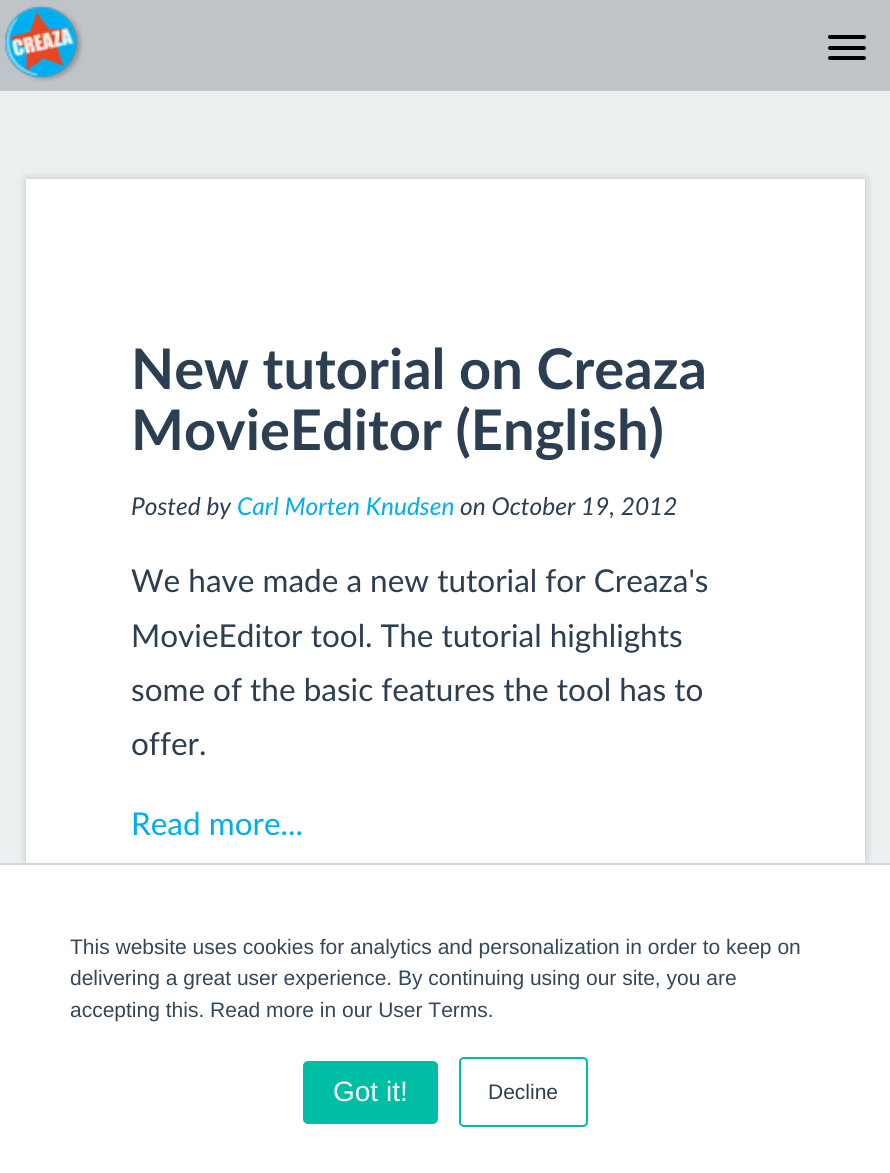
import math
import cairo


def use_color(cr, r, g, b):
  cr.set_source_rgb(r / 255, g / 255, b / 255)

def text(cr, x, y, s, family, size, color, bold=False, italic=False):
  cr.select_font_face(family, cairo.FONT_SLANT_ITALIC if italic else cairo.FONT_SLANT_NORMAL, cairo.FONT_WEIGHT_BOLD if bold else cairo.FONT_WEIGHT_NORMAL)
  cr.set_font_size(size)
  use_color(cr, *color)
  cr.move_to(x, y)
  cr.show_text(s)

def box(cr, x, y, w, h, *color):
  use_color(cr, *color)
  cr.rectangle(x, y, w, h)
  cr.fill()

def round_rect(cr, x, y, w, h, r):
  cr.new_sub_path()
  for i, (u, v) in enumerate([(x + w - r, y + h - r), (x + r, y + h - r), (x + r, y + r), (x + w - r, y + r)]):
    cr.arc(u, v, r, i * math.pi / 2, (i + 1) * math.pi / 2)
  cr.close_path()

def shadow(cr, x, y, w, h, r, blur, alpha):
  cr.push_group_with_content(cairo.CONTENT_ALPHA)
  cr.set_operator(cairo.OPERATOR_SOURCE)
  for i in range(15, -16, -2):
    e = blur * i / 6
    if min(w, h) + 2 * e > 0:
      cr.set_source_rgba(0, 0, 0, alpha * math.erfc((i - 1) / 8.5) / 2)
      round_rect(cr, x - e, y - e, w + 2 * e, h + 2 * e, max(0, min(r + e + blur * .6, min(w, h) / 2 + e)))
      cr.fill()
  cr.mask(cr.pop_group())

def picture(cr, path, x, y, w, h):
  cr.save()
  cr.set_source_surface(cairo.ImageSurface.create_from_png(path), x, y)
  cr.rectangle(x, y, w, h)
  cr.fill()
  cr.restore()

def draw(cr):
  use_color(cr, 236, 240, 241)
  cr.paint()
  box(cr, 0, 0, 890, 91, 191, 196, 200)
  picture(cr, "img_01.png", 4, 5, 79, 77)
  use_color(cr, 0, 0, 0)
  round_rect(cr, 828, 46, 38, 4, 2)
  cr.fill()
  round_rect(cr, 828, 35, 38, 4, 2)
  cr.fill()
  round_rect(cr, 828, 56, 38, 4, 2)
  cr.fill()
  use_color(cr, 0, 0, 0)
  shadow(cr, 26, 179, 839, 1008, 0, 4.5, 0.2)
  box(cr, 26, 179, 839, 684, 255, 255, 255)
  use_color(cr, 234, 240, 246)
  shadow(cr, 0, 865, 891, 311, 0, 4.5, 1)
  box(cr, 0, 865, 890, 308, 255, 255, 255)
  box(cr, 0, 863, 890, 2, 203, 214, 226)
  use_color(cr, 0, 189, 165)
  round_rect(cr, 304, 1062, 133, 61, 4)
  cr.fill_preserve()
  cr.stroke()
  round_rect(cr, 460, 1058, 127, 68, 4)
  cr.stroke()
  text(cr, 131, 389, "New tutorial on Creaza", "Lato", 56, (44, 62, 81), bold=True)
  text(cr, 131, 450, "MovieEditor (English)", "Lato", 56, (44, 62, 81), bold=True)
  text(cr, 131, 515, "Posted by", "Lato", 24.5, (44, 62, 81), italic=True)
  text(cr, 237, 515, "Carl Morten Knudsen", "Lato", 24.5, (0, 174, 239), italic=True)
  text(cr, 460, 515, "on October 19, 2012", "Lato", 24.5, (44, 62, 81), italic=True)
  text(cr, 131, 592, "We have made a new tutorial for Creaza's", "Lato", 31.5, (44, 62, 81))
  text(cr, 131, 647, "MovieEditor tool. The tutorial highlights", "Lato", 31.5, (44, 62, 81))
  text(cr, 131, 701, "some of the basic features the tool has to", "Lato", 31.5, (44, 62, 81))
  text(cr, 131, 755, "offer.", "Lato", 31.5, (44, 62, 81))
  text(cr, 131, 835, "Read more...", "Lato", 31.5, (0, 174, 239))
  text(cr, 70, 954, "This website uses cookies for analytics and personalization in order to keep on", "Liberation Sans", 21, (51, 71, 91))
  text(cr, 70, 985, "delivering a great user experience. By continuing using our site, you are", "Liberation Sans", 21, (51, 71, 91))
  text(cr, 70, 1017, "accepting this. Read more in our User Terms.", "Liberation Sans", 21, (51, 71, 91))
  text(cr, 333, 1101, "Got it!", "Liberation Sans", 28, (255, 255, 255))
  text(cr, 488, 1099, "Decline", "Liberation Sans", 21, (44, 62, 81))


surface = cairo.ImageSurface(cairo.FORMAT_RGB24, 890, 1173)
cr = cairo.Context(surface)
options = cairo.FontOptions()
options.set_hint_metrics(cairo.HINT_METRICS_OFF)
options.set_hint_style(cairo.HINT_STYLE_NONE)
cr.set_font_options(options)
cr.set_miter_limit(4)
draw(cr)
surface.write_to_png("out.png")
